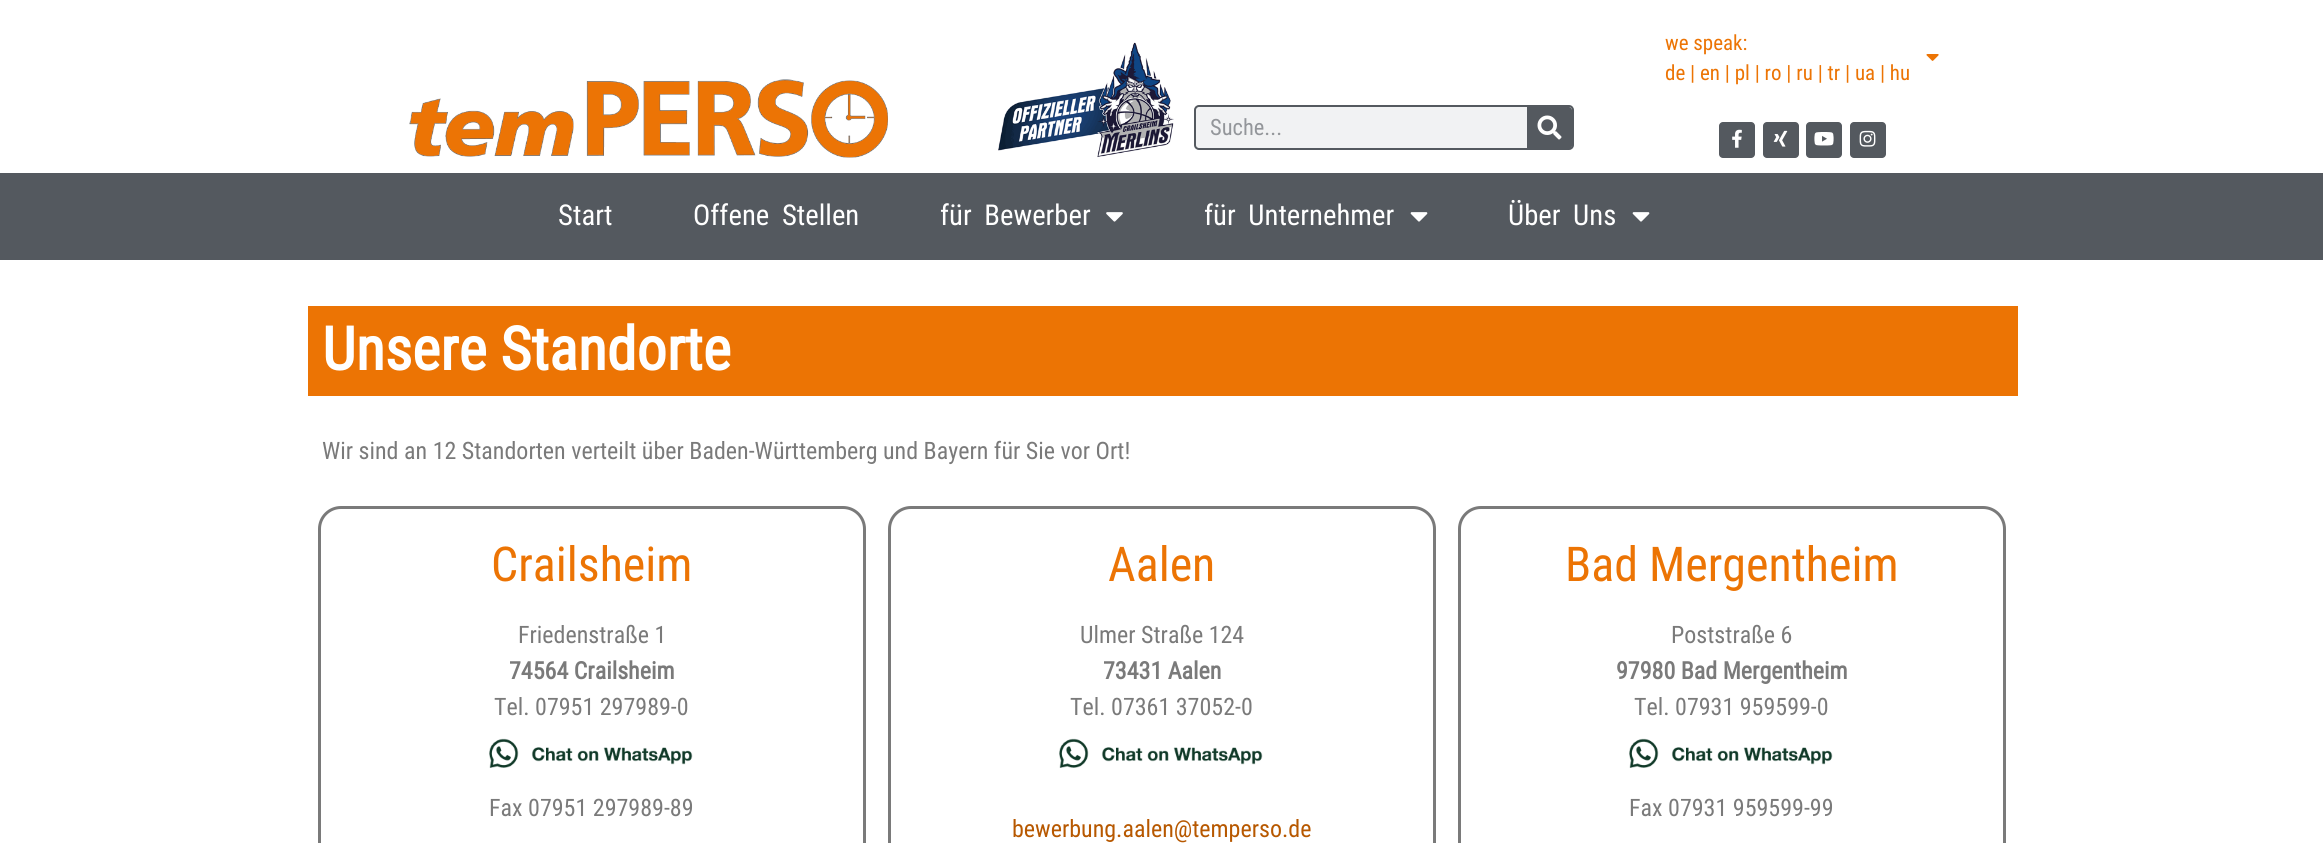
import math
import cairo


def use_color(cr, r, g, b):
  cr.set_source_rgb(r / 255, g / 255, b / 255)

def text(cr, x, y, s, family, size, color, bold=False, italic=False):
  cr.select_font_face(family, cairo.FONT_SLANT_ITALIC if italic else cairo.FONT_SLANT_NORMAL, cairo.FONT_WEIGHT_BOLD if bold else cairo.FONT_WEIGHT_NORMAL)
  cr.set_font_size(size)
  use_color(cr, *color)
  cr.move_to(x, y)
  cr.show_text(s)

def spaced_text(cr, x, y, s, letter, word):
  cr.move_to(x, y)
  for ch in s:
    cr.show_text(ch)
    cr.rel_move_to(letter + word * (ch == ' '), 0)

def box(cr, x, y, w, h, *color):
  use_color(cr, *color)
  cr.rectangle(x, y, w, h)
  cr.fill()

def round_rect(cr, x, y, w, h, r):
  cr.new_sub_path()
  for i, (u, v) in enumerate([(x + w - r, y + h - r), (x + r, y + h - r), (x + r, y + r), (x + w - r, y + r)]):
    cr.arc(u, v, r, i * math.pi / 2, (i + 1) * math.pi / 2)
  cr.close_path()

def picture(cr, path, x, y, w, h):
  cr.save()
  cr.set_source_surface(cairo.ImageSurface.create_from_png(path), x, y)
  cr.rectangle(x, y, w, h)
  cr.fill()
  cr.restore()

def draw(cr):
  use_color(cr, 255, 255, 255)
  cr.paint()
  picture(cr, "img_01.png", 409, 79, 479, 79)
  picture(cr, "img_02.png", 998, 42, 176, 116)
  use_color(cr, 241, 242, 243)
  round_rect(cr, 1195, 106, 378, 43, 4)
  cr.fill_preserve()
  use_color(cr, 84, 89, 95)
  cr.stroke()
  cr.new_path()
  cr.move_to(1527, 107)
  cr.line_to(1569, 107)
  cr.curve_to(1570.5, 107, 1572, 108.5, 1572, 110)
  cr.line_to(1572, 146)
  cr.curve_to(1572, 147.5, 1570.5, 149, 1569, 149)
  cr.line_to(1527, 149)
  cr.close_path()
  cr.fill()
  picture(cr, "img_03.png", 1537, 115, 25, 25)
  picture(cr, "img_04.png", 1926, 54, 13, 7)
  round_rect(cr, 1719, 122, 36, 36, 4)
  cr.fill()
  picture(cr, "img_05.png", 1732, 129, 10, 19)
  round_rect(cr, 1763, 122, 36, 36, 4)
  cr.fill()
  picture(cr, "img_06.png", 1773, 130, 15, 17)
  round_rect(cr, 1806, 122, 36, 36, 4)
  cr.fill()
  picture(cr, "img_07.png", 1814, 132, 20, 14)
  round_rect(cr, 1850, 122, 36, 36, 4)
  cr.fill()
  picture(cr, "img_08.png", 1859, 130, 17, 17)
  box(cr, 0, 173, 2323, 87, 84, 89, 95)
  picture(cr, "img_09.png", 1106, 212, 17, 10)
  picture(cr, "img_10.png", 1410, 212, 18, 10)
  picture(cr, "img_10.png", 1632, 212, 18, 10)
  box(cr, 308, 306, 1710, 90, 236, 116, 4)
  round_rect(cr, 319.5, 507.5, 545, 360, 21.5)
  use_color(cr, 122, 122, 122)
  cr.set_line_width(3)
  cr.stroke()
  picture(cr, "img_11.png", 489, 738, 204, 30)
  round_rect(cr, 889.5, 507.5, 545, 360, 21.5)
  cr.stroke()
  picture(cr, "img_12.png", 1059, 738, 204, 30)
  round_rect(cr, 1459.5, 507.5, 545, 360, 21.5)
  cr.stroke()
  picture(cr, "img_13.png", 1629, 738, 204, 30)
  text(cr, 1210, 135, "Suche...", "Roboto Condensed", 22.5, (147, 150, 154))
  text(cr, 1665, 50, "we speak:", "Roboto Condensed", 21, (236, 116, 4))
  text(cr, 1665, 80, "de | en | pl | ro | ru | tr | ua | hu", "Roboto Condensed", 21, (236, 116, 4))
  text(cr, 558, 225, "Start", "Roboto Condensed", 28.75, (255, 255, 255))
  spaced_text(cr, 693, 225, "Offene Stellen", 0, 6)
  spaced_text(cr, 940, 225, "für Bewerber", 0, 6)
  spaced_text(cr, 1204, 225, "für Unternehmer", 0, 6)
  spaced_text(cr, 1508, 225, "Über Uns", 0, 6)
  text(cr, 322, 370, "Unsere Standorte", "Roboto Condensed", 60, (255, 255, 255), bold=True)
  text(cr, 322, 459, "Wir sind an 12 Standorten verteilt über Baden-Württemberg und Bayern für Sie vor Ort!", "Roboto Condensed", 24, (122, 122, 122))
  text(cr, 491, 581, "Crailsheim", "Roboto Condensed", 48, (236, 116, 4))
  text(cr, 518, 643, "Friedenstraße 1", "Roboto Condensed", 24, (122, 122, 122))
  text(cr, 509, 679, "74564 Crailsheim", "Roboto Condensed", 24, (122, 122, 122), bold=True)
  text(cr, 494, 715, "Tel. 07951 297989-0", "Roboto Condensed", 24, (122, 122, 122))
  text(cr, 489, 816, "Fax 07951 297989-89", "Roboto Condensed", 24, (122, 122, 122))
  text(cr, 1108, 581, "Aalen", "Roboto Condensed", 48, (236, 116, 4))
  text(cr, 1080, 643, "Ulmer Straße 124", "Roboto Condensed", 24, (122, 122, 122))
  text(cr, 1103, 679, "73431 Aalen", "Roboto Condensed", 24, (122, 122, 122), bold=True)
  text(cr, 1070, 715, "Tel. 07361 37052-0", "Roboto Condensed", 24, (122, 122, 122))
  text(cr, 1012, 837, "bewerbung.aalen@temperso.de", "Roboto Condensed", 24, (183, 88, 0))
  text(cr, 1565, 581, "Bad Mergentheim", "Roboto Condensed", 48, (236, 116, 4))
  text(cr, 1671, 643, "Poststraße 6", "Roboto Condensed", 24, (122, 122, 122))
  text(cr, 1616, 679, "97980 Bad Mergentheim", "Roboto Condensed", 24, (122, 122, 122), bold=True)
  text(cr, 1634, 715, "Tel. 07931 959599-0", "Roboto Condensed", 24, (122, 122, 122))
  text(cr, 1629, 816, "Fax 07931 959599-99", "Roboto Condensed", 24, (122, 122, 122))


surface = cairo.ImageSurface(cairo.FORMAT_RGB24, 2323, 843)
cr = cairo.Context(surface)
options = cairo.FontOptions()
options.set_hint_metrics(cairo.HINT_METRICS_OFF)
options.set_hint_style(cairo.HINT_STYLE_NONE)
cr.set_font_options(options)
cr.set_miter_limit(4)
draw(cr)
surface.write_to_png("out.png")
